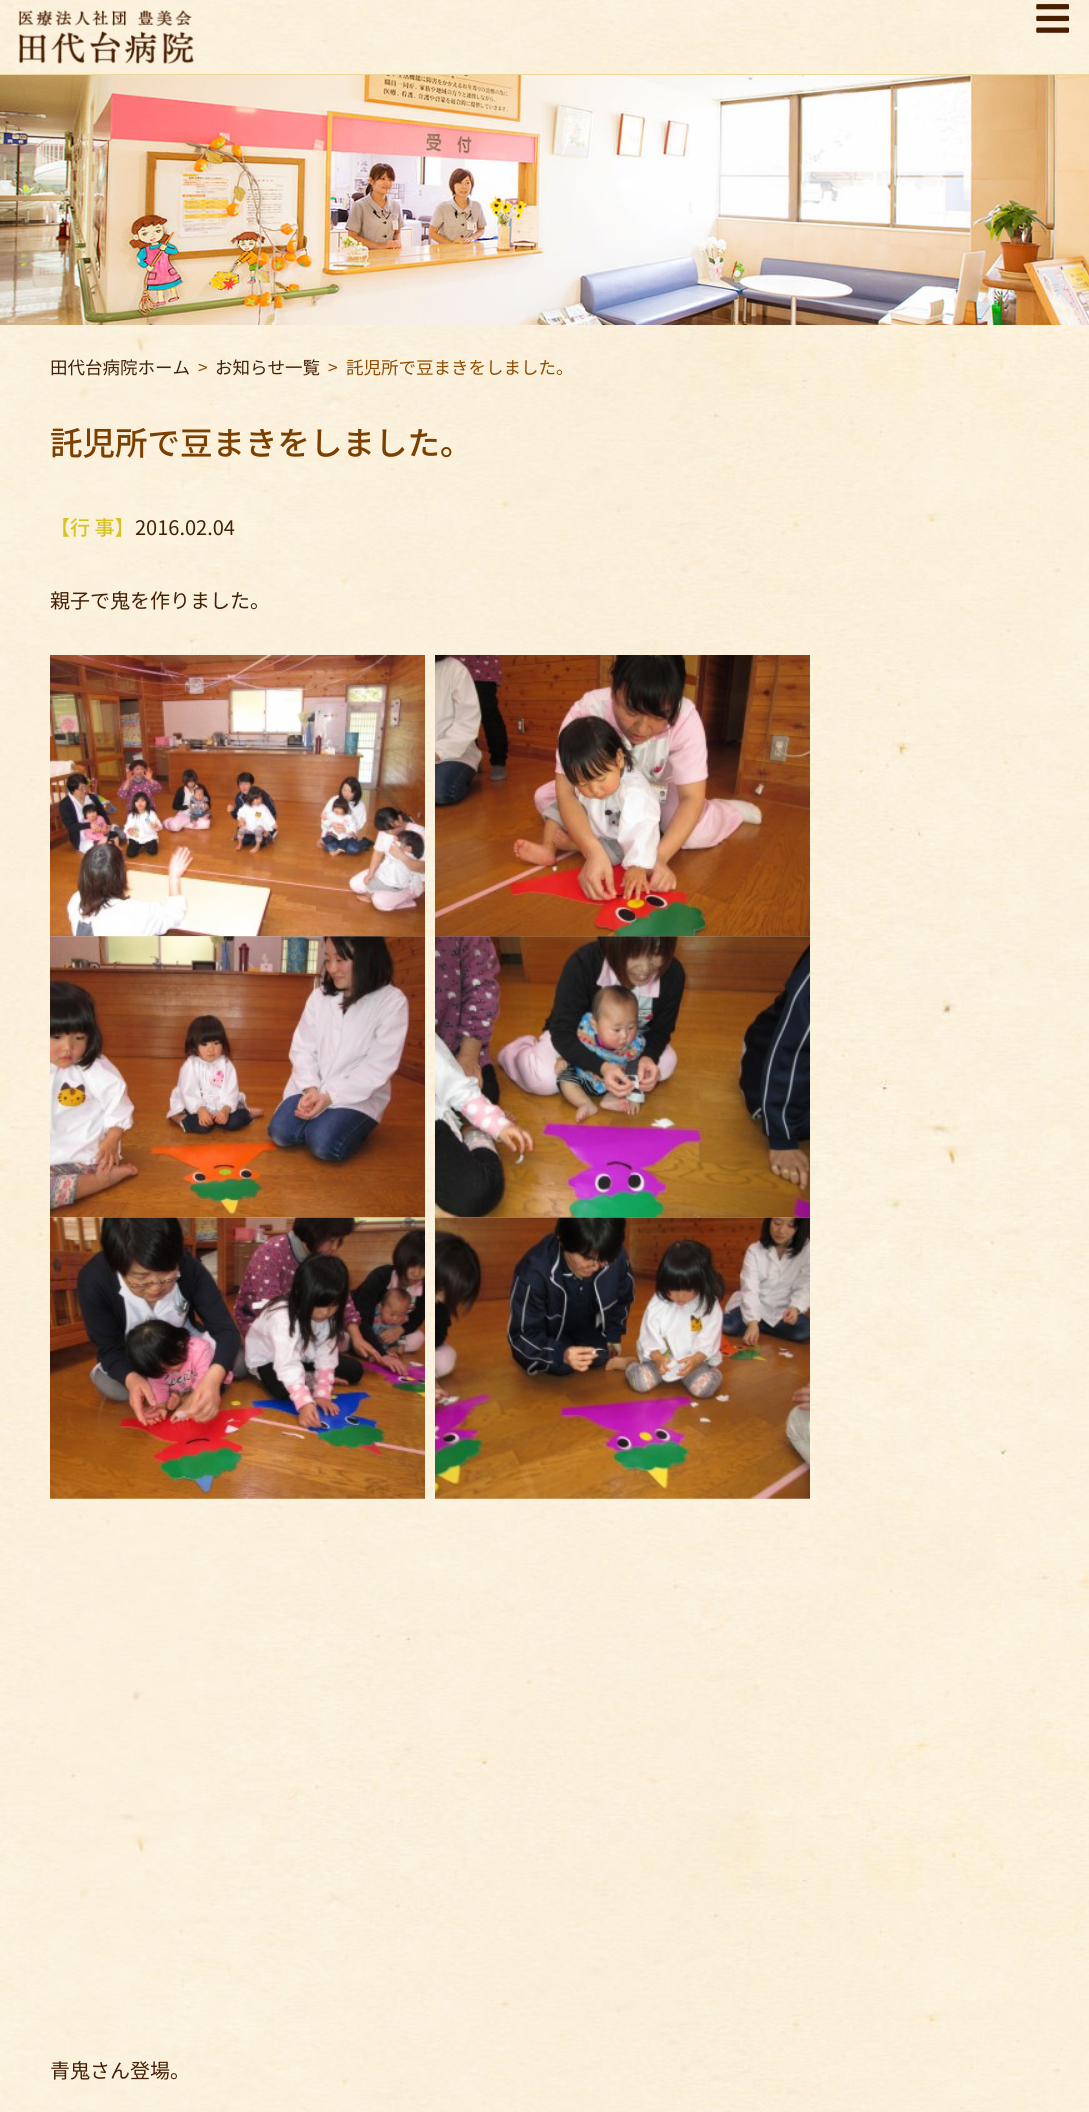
import math
import cairo


def use_color(cr, r, g, b):
  cr.set_source_rgb(r / 255, g / 255, b / 255)

def text(cr, x, y, s, family, size, color, bold=False, italic=False):
  cr.select_font_face(family, cairo.FONT_SLANT_ITALIC if italic else cairo.FONT_SLANT_NORMAL, cairo.FONT_WEIGHT_BOLD if bold else cairo.FONT_WEIGHT_NORMAL)
  cr.set_font_size(size)
  use_color(cr, *color)
  cr.move_to(x, y)
  cr.show_text(s)

def box(cr, x, y, w, h, *color):
  use_color(cr, *color)
  cr.rectangle(x, y, w, h)
  cr.fill()

def picture(cr, path, x, y, w, h):
  cr.save()
  cr.set_source_surface(cairo.ImageSurface.create_from_png(path), x, y)
  cr.rectangle(x, y, w, h)
  cr.fill()
  cr.restore()

def draw(cr):
  use_color(cr, 255, 255, 255)
  cr.paint()
  picture(cr, "img_01.png", 0, 0, 1089, 2112)
  box(cr, 0, 74, 1089, 1, 237, 215, 155)
  picture(cr, "img_02.png", 18, 10, 176, 54)
  picture(cr, "img_03.png", 1036, 4, 34, 29)
  picture(cr, "img_04.png", 0, 75, 1089, 250)
  picture(cr, "img_05.png", 50, 655, 375, 282)
  picture(cr, "img_06.png", 435, 655, 375, 282)
  picture(cr, "img_07.png", 50, 936, 375, 282)
  picture(cr, "img_08.png", 435, 936, 375, 282)
  picture(cr, "img_09.png", 50, 1217, 375, 282)
  picture(cr, "img_10.png", 435, 1217, 375, 282)
  text(cr, 50, 374, "田代台病院ホーム", "Noto Sans JP", 17.5, (68, 33, 6))
  text(cr, 198, 374, ">", "Noto Sans JP", 17.5, (141, 75, 0))
  text(cr, 215, 374, "お知らせ一覧", "Noto Sans JP", 17.5, (68, 33, 6))
  text(cr, 328, 374, ">", "Noto Sans JP", 17.5, (141, 75, 0))
  text(cr, 346, 374, "託児所で豆まきをしました。", "Noto Sans JP", 17.5, (141, 75, 0))
  text(cr, 50, 455, "託児所で豆まきをしました。", "Noto Sans JP Medium", 32.5, (123, 63, 0))
  text(cr, 50, 535, "【行 事】", "Noto Sans JP Medium", 20, (213, 195, 36))
  text(cr, 135, 535, "2016.02.04", "Noto Sans JP", 20, (68, 33, 6))
  text(cr, 50, 608, "親子で鬼を作りました。", "Noto Sans JP", 20, (68, 33, 6))
  text(cr, 50, 2078, "青鬼さん登場。", "Noto Sans JP", 20, (68, 33, 6))


surface = cairo.ImageSurface(cairo.FORMAT_RGB24, 1089, 2112)
cr = cairo.Context(surface)
options = cairo.FontOptions()
options.set_hint_metrics(cairo.HINT_METRICS_OFF)
options.set_hint_style(cairo.HINT_STYLE_NONE)
cr.set_font_options(options)
cr.set_miter_limit(4)
draw(cr)
surface.write_to_png("out.png")
